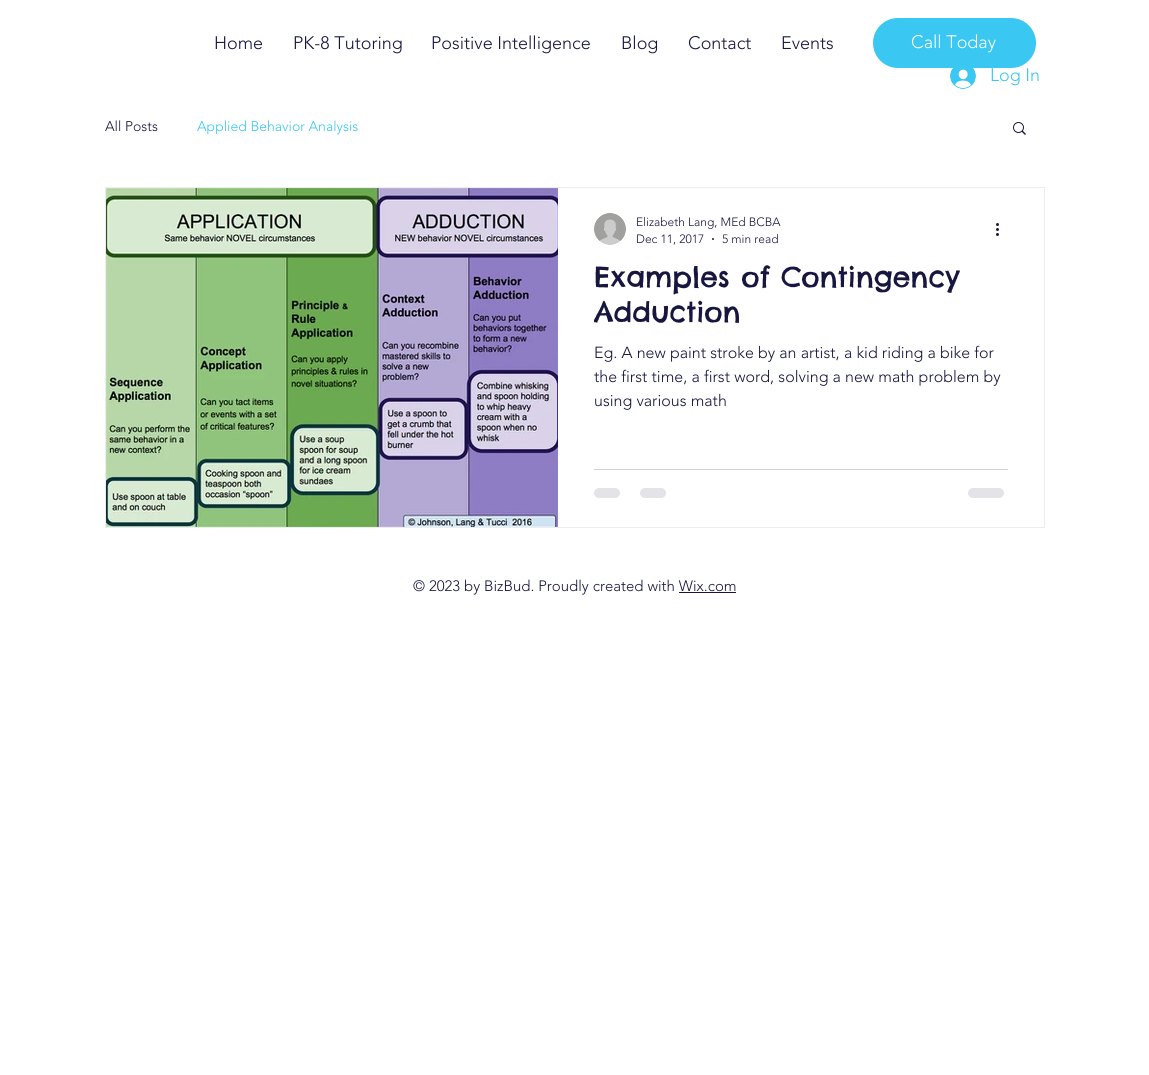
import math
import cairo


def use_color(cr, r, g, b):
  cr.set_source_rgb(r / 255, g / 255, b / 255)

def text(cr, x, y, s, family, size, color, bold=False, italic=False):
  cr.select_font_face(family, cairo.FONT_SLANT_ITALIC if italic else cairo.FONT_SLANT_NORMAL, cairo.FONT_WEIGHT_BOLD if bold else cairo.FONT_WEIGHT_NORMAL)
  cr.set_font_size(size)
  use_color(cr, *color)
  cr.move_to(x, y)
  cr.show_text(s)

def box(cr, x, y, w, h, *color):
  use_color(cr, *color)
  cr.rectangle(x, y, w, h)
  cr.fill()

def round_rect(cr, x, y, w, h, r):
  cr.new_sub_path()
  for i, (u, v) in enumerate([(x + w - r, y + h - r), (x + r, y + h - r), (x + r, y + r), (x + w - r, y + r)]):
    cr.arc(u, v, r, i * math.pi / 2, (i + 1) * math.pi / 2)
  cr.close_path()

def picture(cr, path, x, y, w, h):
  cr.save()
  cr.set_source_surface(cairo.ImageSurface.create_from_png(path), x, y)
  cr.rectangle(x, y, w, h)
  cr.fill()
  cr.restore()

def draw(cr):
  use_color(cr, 255, 255, 255)
  cr.paint()
  use_color(cr, 58, 199, 242)
  round_rect(cr, 873, 18, 163, 50, 25)
  cr.fill()
  picture(cr, "img_01.png", 950, 68, 26, 21)
  picture(cr, "img_02.png", 1013, 122, 13, 13)
  cr.rectangle(105.5, 187.5, 939, 340)
  use_color(cr, 237, 237, 240)
  cr.set_line_width(1)
  cr.stroke()
  picture(cr, "img_03.png", 106, 188, 452, 339)
  picture(cr, "img_04.png", 594, 213, 32, 32)
  use_color(cr, 22, 22, 63)
  cr.arc(713, 239, 1, 0, 2 * math.pi)
  cr.fill()
  picture(cr, "img_05.png", 996, 223, 3, 13)
  box(cr, 594, 469, 414, 1, 208, 208, 217)
  use_color(cr, 227, 227, 232)
  round_rect(cr, 594, 488, 26, 10, 5)
  cr.fill()
  round_rect(cr, 640, 488, 26, 10, 5)
  cr.fill()
  round_rect(cr, 968, 488, 36, 10, 5)
  cr.fill()
  box(cr, 679, 592, 57, 1, 22, 22, 63)
  text(cr, 214, 49, "Home", "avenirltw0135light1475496 Light", 18, (22, 22, 63))
  text(cr, 293, 49, "PK-8 Tutoring", "avenirltw0135light1475496 Light", 18, (22, 22, 63))
  text(cr, 431, 49, "Positive Intelligence", "avenirltw0135light1475496 Light", 18, (22, 22, 63))
  text(cr, 621, 49, "Blog", "avenirltw0135light1475496 Light", 18, (22, 22, 63))
  text(cr, 688, 49, "Contact", "avenirltw0135light1475496 Light", 18, (22, 22, 63))
  text(cr, 781, 49, "Events", "avenirltw0135light1475496 Light", 18, (22, 22, 63))
  text(cr, 911, 48, "Call Today", "avenirltw0135light1475496 Light", 18, (255, 255, 255))
  text(cr, 990, 81, "Log In", "avenirltw0135light1475496 Light", 18, (58, 199, 242))
  text(cr, 105, 131, "All Posts", "avenirltw0135light1475496 Light", 14, (22, 22, 63))
  text(cr, 197, 131, "Applied Behavior Analysis", "avenirltw0135light1475496 Light", 14, (58, 199, 242))
  text(cr, 636, 226, "Elizabeth Lang, MEd BCBA", "avenirltw0135light1475496 Light", 12, (22, 22, 63))
  text(cr, 636, 243, "Dec 11, 2017", "avenirltw0135light1475496 Light", 12, (22, 22, 63))
  text(cr, 722, 243, "5 min read", "avenirltw0135light1475496 Light", 12, (22, 22, 63))
  text(cr, 594, 287, "Examples of Contingency", "Chelsea Market", 28, (22, 22, 63))
  cr.save()
  cr.rectangle(594, 259, 414, 70)
  cr.clip()
  text(cr, 594, 322, "Adduction", "Chelsea Market", 28, (22, 22, 63))
  cr.restore()
  text(cr, 594, 358, "Eg. A new paint stroke by an artist, a kid riding a bike for", "avenirltw0135light1475496 Light", 16, (22, 22, 63))
  text(cr, 594, 382, "the first time, a first word, solving a new math problem by", "avenirltw0135light1475496 Light", 16, (22, 22, 63))
  text(cr, 594, 406, "using various math", "avenirltw0135light1475496 Light", 16, (22, 22, 63))
  text(cr, 413, 591, "© 2023 by BizBud. Proudly created with Wix.com", "avenirltw0135light1475496 Light", 15, (22, 22, 63))


surface = cairo.ImageSurface(cairo.FORMAT_RGB24, 1149, 1075)
cr = cairo.Context(surface)
options = cairo.FontOptions()
options.set_hint_metrics(cairo.HINT_METRICS_OFF)
options.set_hint_style(cairo.HINT_STYLE_NONE)
cr.set_font_options(options)
cr.set_miter_limit(4)
draw(cr)
surface.write_to_png("out.png")
